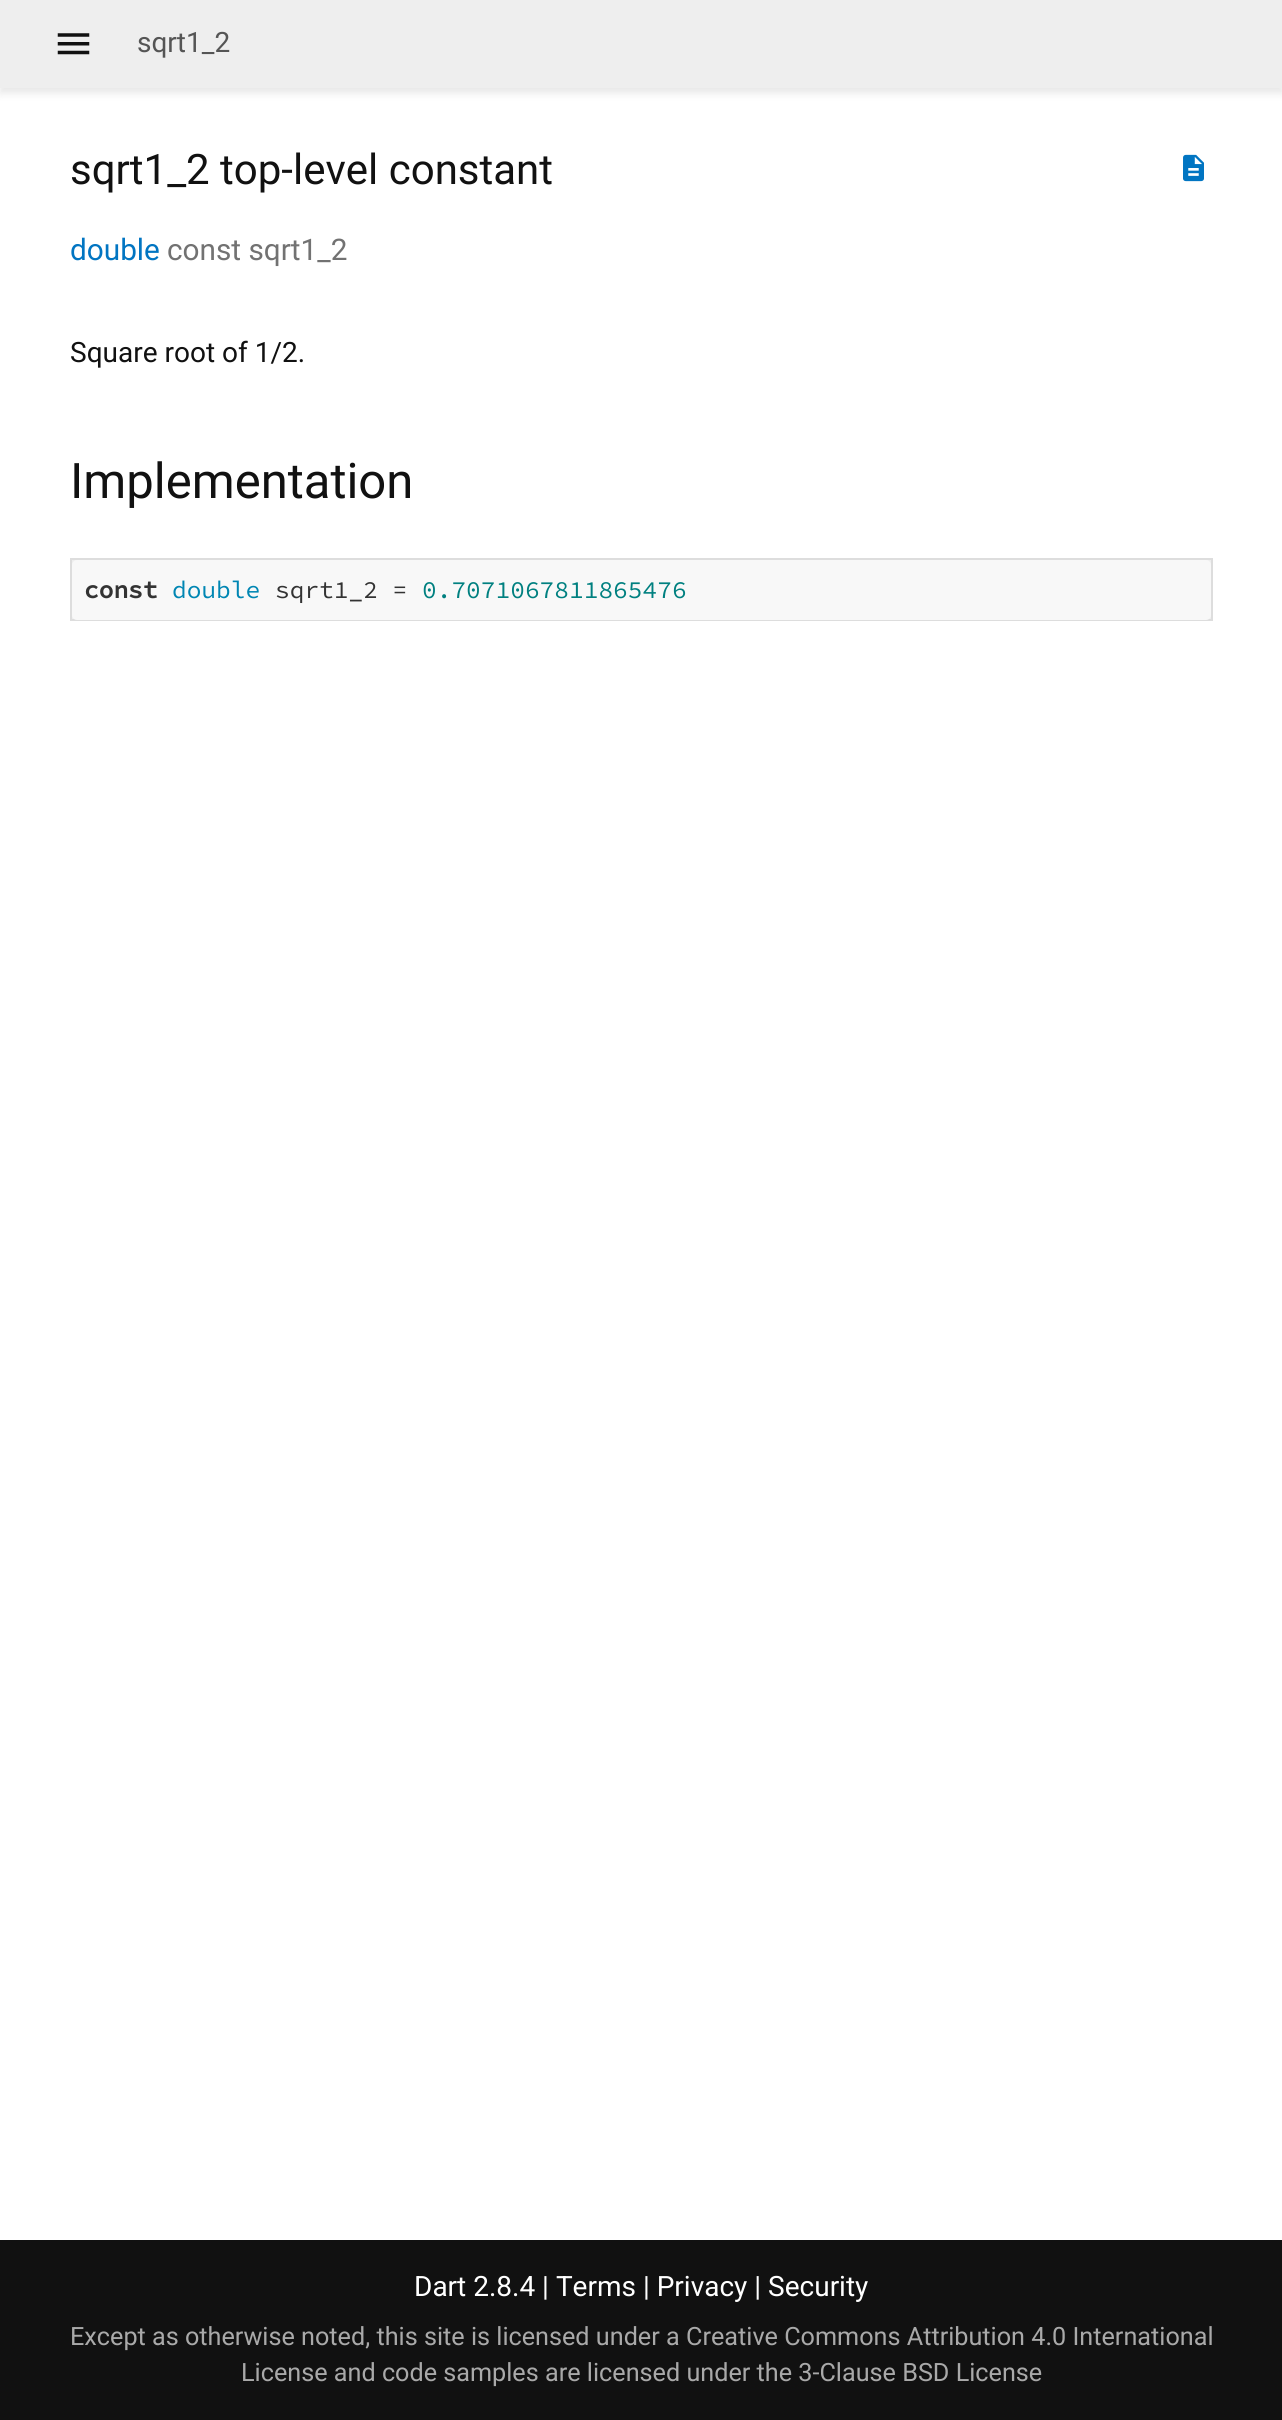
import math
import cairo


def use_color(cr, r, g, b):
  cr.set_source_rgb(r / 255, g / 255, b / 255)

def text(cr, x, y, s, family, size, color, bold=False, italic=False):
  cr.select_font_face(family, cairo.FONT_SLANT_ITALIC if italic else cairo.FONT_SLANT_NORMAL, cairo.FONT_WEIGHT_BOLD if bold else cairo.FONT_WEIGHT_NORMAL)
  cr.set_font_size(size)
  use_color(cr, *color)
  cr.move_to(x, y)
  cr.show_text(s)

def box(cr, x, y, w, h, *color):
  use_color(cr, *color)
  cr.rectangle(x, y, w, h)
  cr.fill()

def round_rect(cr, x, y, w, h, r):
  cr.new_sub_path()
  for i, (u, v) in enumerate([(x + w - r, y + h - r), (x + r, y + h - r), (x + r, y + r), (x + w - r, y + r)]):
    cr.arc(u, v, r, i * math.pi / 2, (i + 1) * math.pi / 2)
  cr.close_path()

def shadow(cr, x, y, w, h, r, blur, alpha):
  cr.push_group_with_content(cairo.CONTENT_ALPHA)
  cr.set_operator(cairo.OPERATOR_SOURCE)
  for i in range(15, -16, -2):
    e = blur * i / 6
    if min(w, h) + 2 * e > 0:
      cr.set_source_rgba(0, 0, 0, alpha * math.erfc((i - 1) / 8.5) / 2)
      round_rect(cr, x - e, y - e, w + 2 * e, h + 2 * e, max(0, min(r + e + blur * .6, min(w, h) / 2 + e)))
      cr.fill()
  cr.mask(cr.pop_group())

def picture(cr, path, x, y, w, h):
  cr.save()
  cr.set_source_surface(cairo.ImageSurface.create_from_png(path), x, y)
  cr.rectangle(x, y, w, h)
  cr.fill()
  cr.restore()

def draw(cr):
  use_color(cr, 255, 255, 255)
  cr.paint()
  use_color(cr, 0, 0, 0)
  shadow(cr, 0, 5, 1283, 88, 0, 4.5, 0.1)
  box(cr, 0, 0, 1282, 88, 238, 238, 238)
  picture(cr, "img_01.png", 57, 33, 33, 22)
  picture(cr, "img_02.png", 1183, 154, 21, 28)
  cr.rectangle(71, 559, 1141, 61)
  cr.fill_preserve()
  use_color(cr, 221, 221, 221)
  cr.stroke()
  use_color(cr, 248, 248, 248)
  round_rect(cr, 72, 560, 1139, 60, 5)
  cr.fill()
  box(cr, 0, 2240, 1282, 180, 17, 17, 17)
  text(cr, 137, 52, "sqrt1_2", "Roboto", 28, (85, 85, 85))
  text(cr, 70, 184, "sqrt1_2 top-level constant", "Roboto", 42, (17, 17, 17))
  text(cr, 70, 260, "double", "Roboto", 29.75, (1, 117, 194))
  text(cr, 167, 260, "const sqrt1_2", "Roboto", 29.75, (114, 114, 114))
  text(cr, 70, 362, "Square root of 1/2.", "Roboto", 28, (17, 17, 17))
  text(cr, 70, 498, "Implementation", "Roboto", 49, (17, 17, 17))
  text(cr, 84, 598, "const", "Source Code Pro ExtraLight", 24.5, (51, 51, 51), bold=True)
  text(cr, 172, 598, "double", "Source Code Pro ExtraLight", 24.5, (0, 134, 179))
  text(cr, 275, 598, "sqrt1_2 =", "Source Code Pro ExtraLight", 24.5, (51, 51, 51))
  text(cr, 422, 598, "0.7071067811865476", "Source Code Pro ExtraLight", 24.5, (0, 128, 128))
  text(cr, 414, 2296, "Dart 2.8.4 | Terms | Privacy | Security", "Roboto", 28, (255, 255, 255))
  text(cr, 70, 2345, "Except as otherwise noted, this site is licensed under a", "Roboto", 25.2, (169, 169, 169))
  text(cr, 686, 2345, "Creative Commons Attribution 4.0 International", "Roboto", 25.2, (169, 169, 169))
  text(cr, 241, 2381, "License and code samples are licensed under the 3-Clause BSD License", "Roboto", 25.2, (169, 169, 169))


surface = cairo.ImageSurface(cairo.FORMAT_RGB24, 1282, 2420)
cr = cairo.Context(surface)
options = cairo.FontOptions()
options.set_hint_metrics(cairo.HINT_METRICS_OFF)
options.set_hint_style(cairo.HINT_STYLE_NONE)
cr.set_font_options(options)
cr.set_miter_limit(4)
draw(cr)
surface.write_to_png("out.png")
